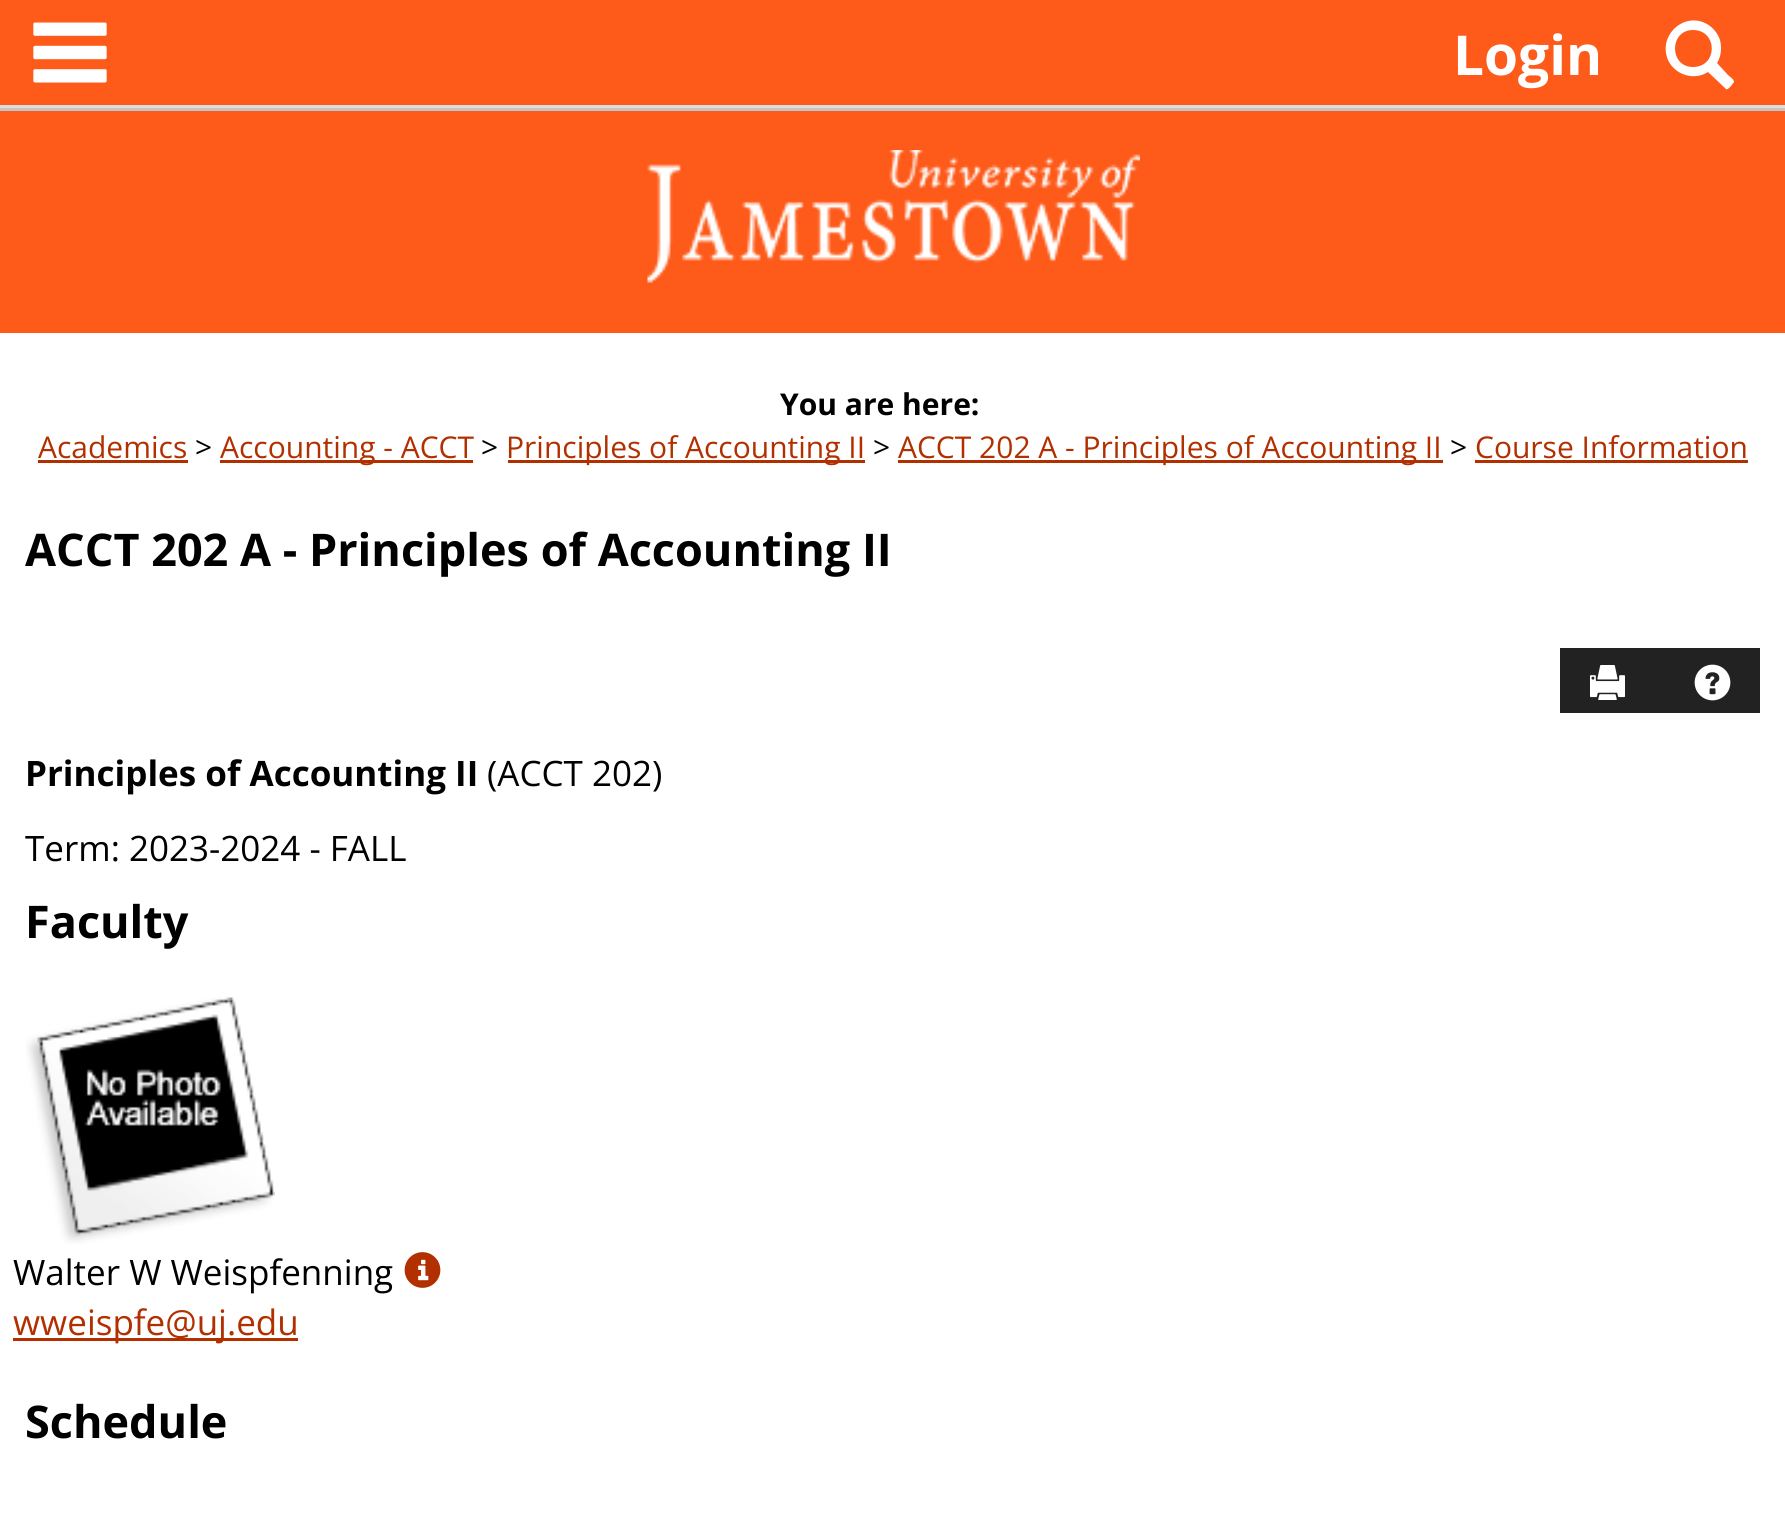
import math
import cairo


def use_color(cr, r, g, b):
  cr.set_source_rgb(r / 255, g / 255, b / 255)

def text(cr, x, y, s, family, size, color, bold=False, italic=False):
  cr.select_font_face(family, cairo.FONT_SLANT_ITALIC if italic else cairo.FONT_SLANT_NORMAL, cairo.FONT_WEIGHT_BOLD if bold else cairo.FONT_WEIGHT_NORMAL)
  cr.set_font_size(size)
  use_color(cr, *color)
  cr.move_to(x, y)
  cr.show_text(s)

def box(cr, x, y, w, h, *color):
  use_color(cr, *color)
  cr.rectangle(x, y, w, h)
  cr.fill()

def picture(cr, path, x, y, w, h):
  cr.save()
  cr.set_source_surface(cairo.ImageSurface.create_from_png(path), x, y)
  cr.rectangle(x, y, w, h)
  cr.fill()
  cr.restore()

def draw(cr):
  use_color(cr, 255, 255, 255)
  cr.paint()
  box(cr, 0, 0, 1785, 333, 254, 90, 25)
  picture(cr, "img_01.png", 33, 22, 74, 61)
  use_color(cr, 255, 255, 255)
  cr.new_path()
  cr.move_to(1726, 89)
  cr.line_to(1708, 72)
  cr.curve_to(1694, 81, 1675, 75, 1668, 60)
  cr.curve_to(1657, 34, 1687, 9, 1710, 26)
  cr.curve_to(1714, 29, 1718, 34, 1720, 40)
  cr.curve_to(1722, 48, 1721, 57, 1717, 63)
  cr.line_to(1728, 75)
  cr.curve_to(1729, 76, 1734, 79, 1734, 82)
  cr.curve_to(1734, 82, 1728, 91, 1726, 89)
  cr.close_path()
  cr.move_to(1693, 67)
  cr.curve_to(1718, 67, 1718, 30, 1693, 30)
  cr.curve_to(1669, 30, 1669, 67, 1693, 67)
  cr.close_path()
  cr.fill()
  box(cr, 0, 108, 1785, 3, 197, 197, 197)
  picture(cr, "img_02.png", 647, 150, 493, 133)
  box(cr, 0, 105, 1785, 3, 222, 222, 222)
  box(cr, 38, 460, 150, 3, 178, 48, 0)
  box(cr, 220, 460, 253, 3, 178, 48, 0)
  box(cr, 508, 460, 357, 3, 178, 48, 0)
  box(cr, 898, 460, 545, 3, 178, 48, 0)
  box(cr, 1475, 460, 273, 3, 178, 48, 0)
  box(cr, 1560, 648, 200, 65, 34, 34, 34)
  picture(cr, "img_03.png", 1590, 665, 35, 35)
  picture(cr, "img_04.png", 1694, 664, 37, 37)
  picture(cr, "img_05.png", 26, 997, 249, 247)
  picture(cr, "img_06.png", 404, 1252, 37, 36)
  box(cr, 13, 1338, 285, 3, 178, 48, 0)
  text(cr, 1453, 75, "Login", "Open Sans", 55, (255, 255, 255), bold=True)
  text(cr, 780, 415, "You are here:", "Open Sans", 30, (0, 0, 0), bold=True)
  text(cr, 38, 458, "Academics", "Open Sans", 30, (178, 48, 0))
  text(cr, 195, 458, ">", "Open Sans", 30, (0, 0, 0))
  text(cr, 220, 458, "Accounting - ACCT", "Open Sans", 30, (178, 48, 0))
  text(cr, 481, 458, ">", "Open Sans", 30, (0, 0, 0))
  text(cr, 506, 458, "Principles of Accounting II", "Open Sans", 30, (178, 48, 0))
  text(cr, 873, 458, ">", "Open Sans", 30, (0, 0, 0))
  text(cr, 898, 458, "ACCT 202 A - Principles of Accounting II", "Open Sans", 30, (178, 48, 0))
  text(cr, 1450, 458, ">", "Open Sans", 30, (0, 0, 0))
  text(cr, 1475, 458, "Course Information", "Open Sans", 30, (178, 48, 0))
  text(cr, 25, 566, "ACCT 202 A - Principles of Accounting II", "Open Sans", 45, (0, 0, 0), bold=True)
  text(cr, 25, 786, "Principles of Accounting II", "Open Sans", 35, (0, 0, 0), bold=True)
  text(cr, 487, 786, "(ACCT 202)", "Open Sans", 35, (0, 0, 0))
  text(cr, 25, 861, "Term: 2023-2024 - FALL", "Open Sans", 35, (0, 0, 0))
  text(cr, 25, 938, "Faculty", "Open Sans", 45, (0, 0, 0), bold=True)
  text(cr, 13, 1285, "Walter W Weispfenning", "Open Sans", 35, (0, 0, 0))
  text(cr, 13, 1335, "wweispfe@uj.edu", "Open Sans", 35, (178, 48, 0))
  text(cr, 25, 1438, "Schedule", "Open Sans", 45, (0, 0, 0), bold=True)


surface = cairo.ImageSurface(cairo.FORMAT_RGB24, 1785, 1526)
cr = cairo.Context(surface)
options = cairo.FontOptions()
options.set_hint_metrics(cairo.HINT_METRICS_OFF)
options.set_hint_style(cairo.HINT_STYLE_NONE)
cr.set_font_options(options)
cr.set_miter_limit(4)
draw(cr)
surface.write_to_png("out.png")
